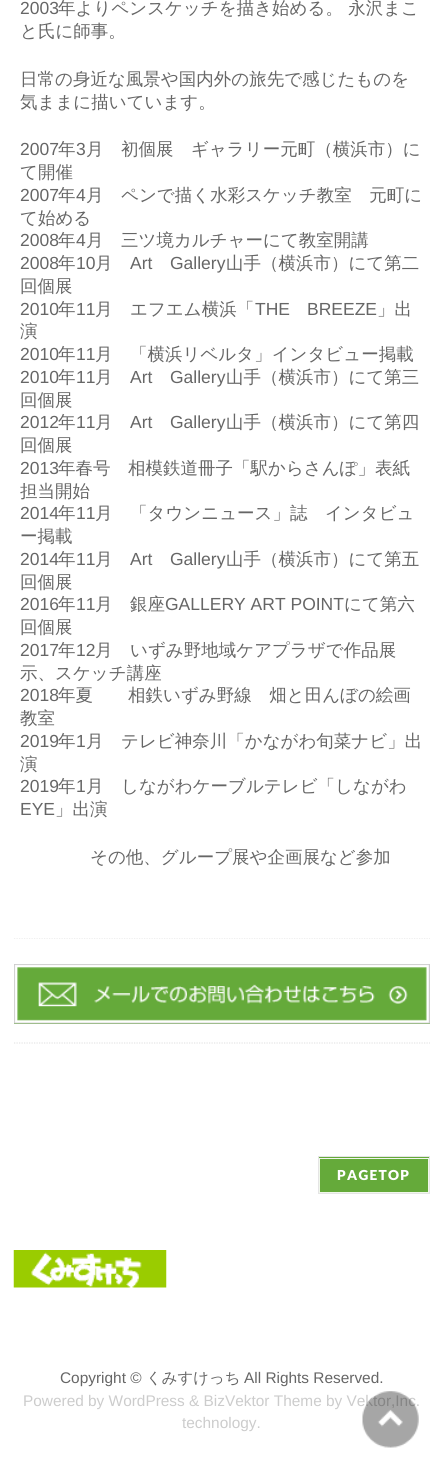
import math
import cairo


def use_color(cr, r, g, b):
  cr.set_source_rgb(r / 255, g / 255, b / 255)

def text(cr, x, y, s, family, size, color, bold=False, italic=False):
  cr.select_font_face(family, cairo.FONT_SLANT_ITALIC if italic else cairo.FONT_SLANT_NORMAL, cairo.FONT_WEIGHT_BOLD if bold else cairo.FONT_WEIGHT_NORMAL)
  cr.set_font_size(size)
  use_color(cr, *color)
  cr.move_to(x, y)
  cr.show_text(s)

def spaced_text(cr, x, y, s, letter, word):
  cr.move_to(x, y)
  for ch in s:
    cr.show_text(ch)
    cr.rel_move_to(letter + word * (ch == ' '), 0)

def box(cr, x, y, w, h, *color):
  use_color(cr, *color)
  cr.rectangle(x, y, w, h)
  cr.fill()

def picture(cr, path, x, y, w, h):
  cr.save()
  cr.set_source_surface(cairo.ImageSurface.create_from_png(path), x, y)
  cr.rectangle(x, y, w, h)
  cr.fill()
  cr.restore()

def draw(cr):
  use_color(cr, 255, 255, 255)
  cr.paint()
  cr.save()
  cr.rectangle(14, 938, 416, 106)
  cr.clip()
  cr.new_path()
  cr.move_to(14, 938)
  cr.line_to(430, 938)
  use_color(cr, 229, 229, 229)
  cr.set_line_width(1.2)
  cr.set_dash([1.25, 1.25])
  cr.stroke()
  cr.restore()
  cr.new_path()
  cr.move_to(14, 1043)
  cr.line_to(430, 1043)
  use_color(cr, 229, 229, 229)
  cr.set_line_width(1.2)
  cr.set_dash([1.25, 1.25])
  cr.stroke()
  box(cr, 14, 967, 416, 57, 101, 170, 58)
  picture(cr, "img_01.png", 14, 964, 416, 60)
  box(cr, 319, 1157, 110, 35, 101, 170, 58)
  cr.rectangle(319.5, 1158.5, 109, 34)
  use_color(cr, 240, 247, 235)
  cr.set_line_width(1)
  cr.set_dash([])
  cr.stroke()
  cr.rectangle(318.5, 1156.5, 111, 37)
  use_color(cr, 229, 229, 229)
  cr.stroke()
  picture(cr, "img_02.png", 13, 1250, 154, 38)
  text(cr, 20, 14, "2003", "Liberation Sans", 17.5, (102, 102, 102))
  text(cr, 58, 14, "年よりペンスケッチを描き始める。 永沢まこ", "WenQuanYi Zen Hei Medium", 17.5, (102, 102, 102))
  text(cr, 20, 37, "と氏に師事。", "WenQuanYi Zen Hei Medium", 17.5, (102, 102, 102))
  text(cr, 20, 85, "日常の身近な風景や国内外の旅先で感じたものを", "WenQuanYi Zen Hei Medium", 17.5, (102, 102, 102))
  text(cr, 20, 108, "気ままに描いています。", "WenQuanYi Zen Hei Medium", 17.5, (102, 102, 102))
  text(cr, 20, 155, "2007", "Liberation Sans", 17.5, (102, 102, 102))
  text(cr, 58, 155, "年", "WenQuanYi Zen Hei Medium", 17.5, (102, 102, 102))
  text(cr, 76, 155, "3", "Liberation Sans", 17.5, (102, 102, 102))
  text(cr, 86, 155, "月　初個展　ギャラリー元町（横浜市）に", "WenQuanYi Zen Hei Medium", 17.5, (102, 102, 102))
  text(cr, 20, 178, "て開催", "WenQuanYi Zen Hei Medium", 17.5, (102, 102, 102))
  text(cr, 20, 201, "2007", "Liberation Sans", 17.5, (102, 102, 102))
  text(cr, 58, 201, "年", "WenQuanYi Zen Hei Medium", 17.5, (102, 102, 102))
  text(cr, 76, 201, "4", "Liberation Sans", 17.5, (102, 102, 102))
  text(cr, 86, 201, "月　ペンで描く水彩スケッチ教室　元町に", "WenQuanYi Zen Hei Medium", 17.5, (102, 102, 102))
  text(cr, 20, 224, "て始める", "WenQuanYi Zen Hei Medium", 17.5, (102, 102, 102))
  text(cr, 20, 246, "2008", "Liberation Sans", 17.5, (102, 102, 102))
  text(cr, 58, 246, "年", "WenQuanYi Zen Hei Medium", 17.5, (102, 102, 102))
  text(cr, 76, 246, "4", "Liberation Sans", 17.5, (102, 102, 102))
  text(cr, 86, 246, "月　三ツ境カルチャーにて教室開講", "WenQuanYi Zen Hei Medium", 17.5, (102, 102, 102))
  text(cr, 20, 269, "2008", "Liberation Sans", 17.5, (102, 102, 102))
  text(cr, 58, 269, "年", "WenQuanYi Zen Hei Medium", 17.5, (102, 102, 102))
  text(cr, 76, 269, "10", "Liberation Sans", 17.5, (102, 102, 102))
  text(cr, 95, 269, "月", "WenQuanYi Zen Hei Medium", 17.5, (102, 102, 102))
  text(cr, 130, 269, "Art", "Liberation Sans", 17.5, (102, 102, 102))
  text(cr, 170, 269, "Gallery", "Liberation Sans", 17.5, (102, 102, 102))
  text(cr, 226, 269, "山手（横浜市）にて第二", "WenQuanYi Zen Hei Medium", 17.5, (102, 102, 102))
  text(cr, 20, 292, "回個展", "WenQuanYi Zen Hei Medium", 17.5, (102, 102, 102))
  text(cr, 20, 315, "2010", "Liberation Sans", 17.5, (102, 102, 102))
  text(cr, 58, 315, "年", "WenQuanYi Zen Hei Medium", 17.5, (102, 102, 102))
  text(cr, 76, 315, "11", "Liberation Sans", 17.5, (102, 102, 102))
  text(cr, 95, 315, "月　エフエム横浜「", "WenQuanYi Zen Hei Medium", 17.5, (102, 102, 102))
  text(cr, 255, 315, "THE", "Liberation Sans", 17.5, (102, 102, 102))
  text(cr, 307, 315, "BREEZE", "Liberation Sans", 17.5, (102, 102, 102))
  text(cr, 377, 315, "」出", "WenQuanYi Zen Hei Medium", 17.5, (102, 102, 102))
  text(cr, 20, 337, "演", "WenQuanYi Zen Hei Medium", 17.5, (102, 102, 102))
  text(cr, 20, 360, "2010", "Liberation Sans", 17.5, (102, 102, 102))
  text(cr, 58, 360, "年", "WenQuanYi Zen Hei Medium", 17.5, (102, 102, 102))
  text(cr, 76, 360, "11", "Liberation Sans", 17.5, (102, 102, 102))
  text(cr, 95, 360, "月　「横浜リベルタ」インタビュー掲載", "WenQuanYi Zen Hei Medium", 17.5, (102, 102, 102))
  text(cr, 20, 383, "2010", "Liberation Sans", 17.5, (102, 102, 102))
  text(cr, 58, 383, "年", "WenQuanYi Zen Hei Medium", 17.5, (102, 102, 102))
  text(cr, 76, 383, "11", "Liberation Sans", 17.5, (102, 102, 102))
  text(cr, 95, 383, "月", "WenQuanYi Zen Hei Medium", 17.5, (102, 102, 102))
  text(cr, 130, 383, "Art", "Liberation Sans", 17.5, (102, 102, 102))
  text(cr, 170, 383, "Gallery", "Liberation Sans", 17.5, (102, 102, 102))
  text(cr, 226, 383, "山手（横浜市）にて第三", "WenQuanYi Zen Hei Medium", 17.5, (102, 102, 102))
  text(cr, 20, 406, "回個展", "WenQuanYi Zen Hei Medium", 17.5, (102, 102, 102))
  text(cr, 20, 428, "2012", "Liberation Sans", 17.5, (102, 102, 102))
  text(cr, 58, 428, "年", "WenQuanYi Zen Hei Medium", 17.5, (102, 102, 102))
  text(cr, 76, 428, "11", "Liberation Sans", 17.5, (102, 102, 102))
  text(cr, 95, 428, "月", "WenQuanYi Zen Hei Medium", 17.5, (102, 102, 102))
  text(cr, 130, 428, "Art", "Liberation Sans", 17.5, (102, 102, 102))
  text(cr, 170, 428, "Gallery", "Liberation Sans", 17.5, (102, 102, 102))
  text(cr, 226, 428, "山手（横浜市）にて第四", "WenQuanYi Zen Hei Medium", 17.5, (102, 102, 102))
  text(cr, 20, 451, "回個展", "WenQuanYi Zen Hei Medium", 17.5, (102, 102, 102))
  text(cr, 20, 474, "2013", "Liberation Sans", 17.5, (102, 102, 102))
  text(cr, 58, 474, "年春号　相模鉄道冊子「駅からさんぽ」表紙", "WenQuanYi Zen Hei Medium", 17.5, (102, 102, 102))
  text(cr, 20, 497, "担当開始", "WenQuanYi Zen Hei Medium", 17.5, (102, 102, 102))
  text(cr, 20, 519, "2014", "Liberation Sans", 17.5, (102, 102, 102))
  text(cr, 58, 519, "年", "WenQuanYi Zen Hei Medium", 17.5, (102, 102, 102))
  text(cr, 76, 519, "11", "Liberation Sans", 17.5, (102, 102, 102))
  text(cr, 95, 519, "月　「タウンニュース」誌　インタビュ", "WenQuanYi Zen Hei Medium", 17.5, (102, 102, 102))
  text(cr, 20, 542, "ー掲載", "WenQuanYi Zen Hei Medium", 17.5, (102, 102, 102))
  text(cr, 20, 565, "2014", "Liberation Sans", 17.5, (102, 102, 102))
  text(cr, 58, 565, "年", "WenQuanYi Zen Hei Medium", 17.5, (102, 102, 102))
  text(cr, 76, 565, "11", "Liberation Sans", 17.5, (102, 102, 102))
  text(cr, 95, 565, "月", "WenQuanYi Zen Hei Medium", 17.5, (102, 102, 102))
  text(cr, 130, 565, "Art", "Liberation Sans", 17.5, (102, 102, 102))
  text(cr, 170, 565, "Gallery", "Liberation Sans", 17.5, (102, 102, 102))
  text(cr, 226, 565, "山手（横浜市）にて第五", "WenQuanYi Zen Hei Medium", 17.5, (102, 102, 102))
  text(cr, 20, 588, "回個展", "WenQuanYi Zen Hei Medium", 17.5, (102, 102, 102))
  text(cr, 20, 610, "2016", "Liberation Sans", 17.5, (102, 102, 102))
  text(cr, 58, 610, "年", "WenQuanYi Zen Hei Medium", 17.5, (102, 102, 102))
  text(cr, 76, 610, "11", "Liberation Sans", 17.5, (102, 102, 102))
  text(cr, 95, 610, "月　銀座", "WenQuanYi Zen Hei Medium", 17.5, (102, 102, 102))
  text(cr, 165, 610, "GALLERY ART POINT", "Liberation Sans", 17.5, (102, 102, 102))
  text(cr, 344, 610, "にて第六", "WenQuanYi Zen Hei Medium", 17.5, (102, 102, 102))
  text(cr, 20, 633, "回個展", "WenQuanYi Zen Hei Medium", 17.5, (102, 102, 102))
  text(cr, 20, 656, "2017", "Liberation Sans", 17.5, (102, 102, 102))
  text(cr, 58, 656, "年", "WenQuanYi Zen Hei Medium", 17.5, (102, 102, 102))
  text(cr, 76, 656, "12", "Liberation Sans", 17.5, (102, 102, 102))
  text(cr, 95, 656, "月　いずみ野地域ケアプラザで作品展", "WenQuanYi Zen Hei Medium", 17.5, (102, 102, 102))
  text(cr, 20, 679, "示、スケッチ講座", "WenQuanYi Zen Hei Medium", 17.5, (102, 102, 102))
  text(cr, 20, 701, "2018", "Liberation Sans", 17.5, (102, 102, 102))
  text(cr, 58, 701, "年夏　　相鉄いずみ野線　畑と田んぼの絵画", "WenQuanYi Zen Hei Medium", 17.5, (102, 102, 102))
  text(cr, 20, 724, "教室", "WenQuanYi Zen Hei Medium", 17.5, (102, 102, 102))
  text(cr, 20, 747, "2019", "Liberation Sans", 17.5, (102, 102, 102))
  text(cr, 58, 747, "年", "WenQuanYi Zen Hei Medium", 17.5, (102, 102, 102))
  text(cr, 76, 747, "1", "Liberation Sans", 17.5, (102, 102, 102))
  text(cr, 86, 747, "月　テレビ神奈川「かながわ旬菜ナビ」出", "WenQuanYi Zen Hei Medium", 17.5, (102, 102, 102))
  text(cr, 20, 770, "演", "WenQuanYi Zen Hei Medium", 17.5, (102, 102, 102))
  text(cr, 20, 792, "2019", "Liberation Sans", 17.5, (102, 102, 102))
  text(cr, 58, 792, "年", "WenQuanYi Zen Hei Medium", 17.5, (102, 102, 102))
  text(cr, 76, 792, "1", "Liberation Sans", 17.5, (102, 102, 102))
  text(cr, 86, 792, "月　しながわケーブルテレビ「しながわ", "WenQuanYi Zen Hei Medium", 17.5, (102, 102, 102))
  text(cr, 20, 815, "EYE", "Liberation Sans", 17.5, (102, 102, 102))
  text(cr, 55, 815, "」出演", "WenQuanYi Zen Hei Medium", 17.5, (102, 102, 102))
  text(cr, 90, 863, "その他、グループ展や企画展など参加", "WenQuanYi Zen Hei Medium", 17.5, (102, 102, 102))
  cr.select_font_face("Lato Black")
  cr.set_font_size(13.75)
  use_color(cr, 255, 255, 255)
  spaced_text(cr, 337, 1180, "PAGETOP", 1.25, 0)
  text(cr, 60, 1383, "Copyright ©", "Liberation Sans", 15.4, (102, 102, 102))
  text(cr, 146, 1383, "くみすけっち", "WenQuanYi Zen Hei Medium", 15.4, (102, 102, 102))
  text(cr, 244, 1383, "All Rights Reserved.", "Liberation Sans", 15.4, (102, 102, 102))
  text(cr, 23, 1406, "Powered by WordPress & BizVektor Theme by Vektor,Inc.", "Liberation Sans", 15.4, (204, 204, 204))
  text(cr, 182, 1428, "technology.", "Liberation Sans", 15.4, (204, 204, 204))
  picture(cr, "img_03.png", 362, 1391, 57, 57)


surface = cairo.ImageSurface(cairo.FORMAT_RGB24, 443, 1472)
cr = cairo.Context(surface)
options = cairo.FontOptions()
options.set_hint_metrics(cairo.HINT_METRICS_OFF)
options.set_hint_style(cairo.HINT_STYLE_NONE)
cr.set_font_options(options)
cr.set_miter_limit(4)
draw(cr)
surface.write_to_png("out.png")
